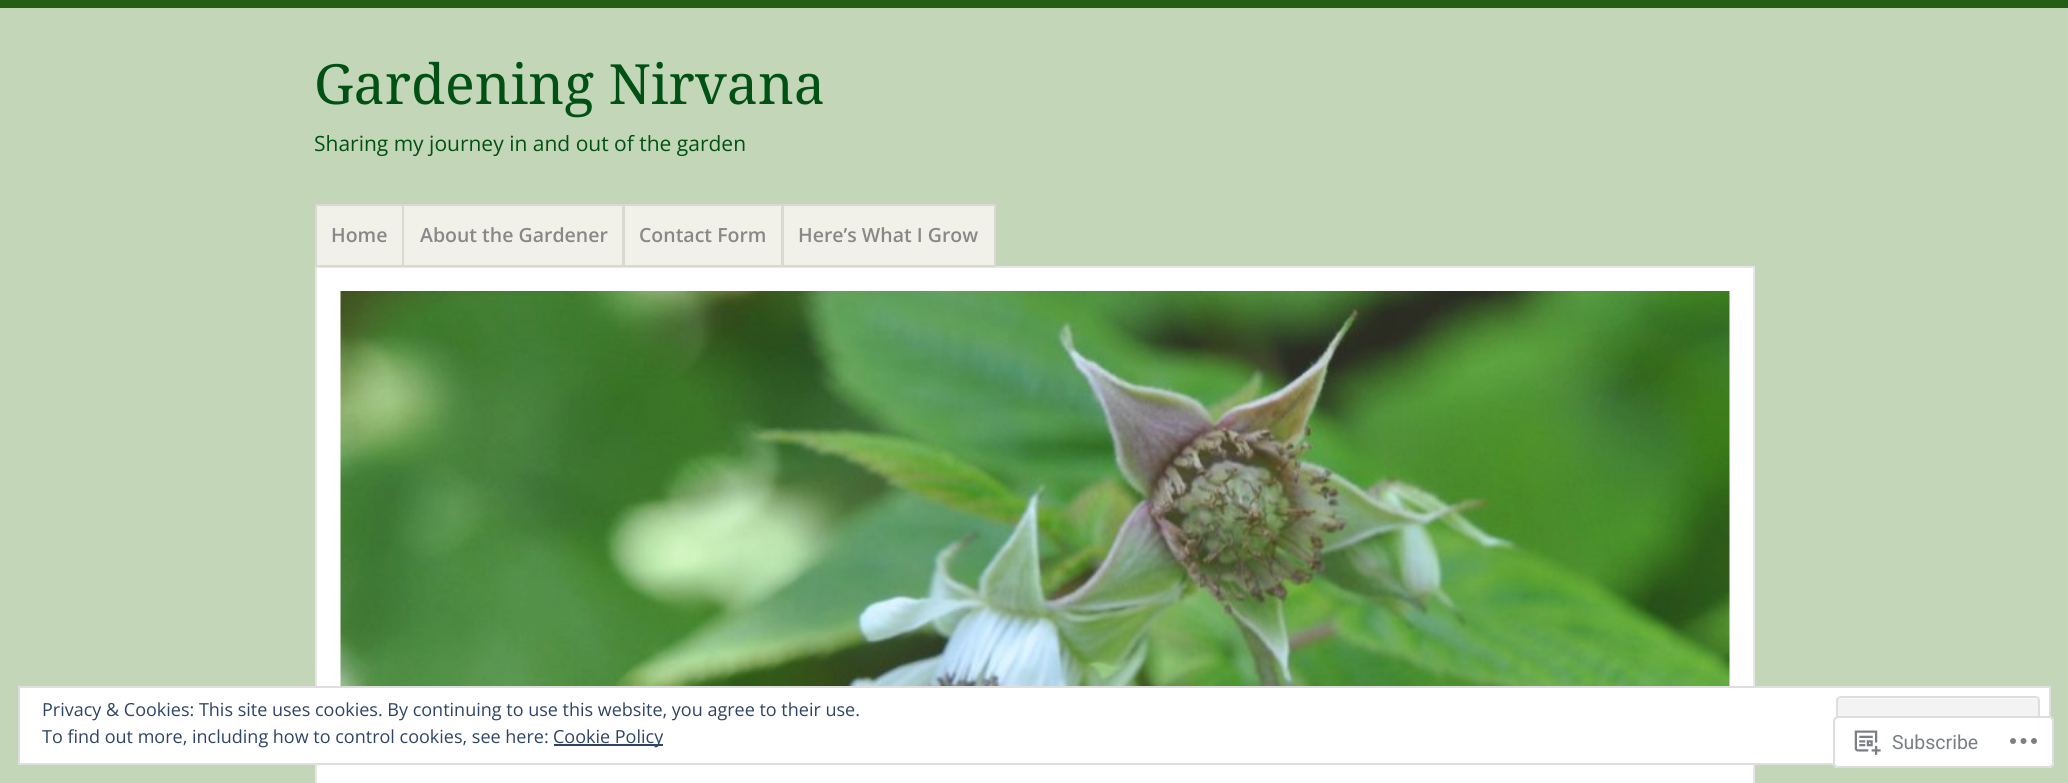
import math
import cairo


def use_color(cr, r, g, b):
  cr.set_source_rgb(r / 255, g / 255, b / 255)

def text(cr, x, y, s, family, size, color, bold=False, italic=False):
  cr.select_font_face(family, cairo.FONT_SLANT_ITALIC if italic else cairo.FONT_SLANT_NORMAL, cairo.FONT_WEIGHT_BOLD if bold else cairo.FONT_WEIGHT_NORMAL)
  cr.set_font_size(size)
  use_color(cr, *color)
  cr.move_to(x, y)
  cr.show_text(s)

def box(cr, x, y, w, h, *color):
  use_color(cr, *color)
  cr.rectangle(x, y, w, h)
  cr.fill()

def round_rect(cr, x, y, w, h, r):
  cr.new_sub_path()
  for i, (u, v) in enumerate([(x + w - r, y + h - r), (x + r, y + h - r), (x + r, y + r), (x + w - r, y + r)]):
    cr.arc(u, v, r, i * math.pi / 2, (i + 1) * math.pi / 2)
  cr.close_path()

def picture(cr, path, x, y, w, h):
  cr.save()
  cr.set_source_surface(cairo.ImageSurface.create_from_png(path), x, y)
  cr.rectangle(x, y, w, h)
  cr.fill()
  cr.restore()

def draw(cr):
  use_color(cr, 195, 214, 184)
  cr.paint()
  box(cr, 0, 0, 2068, 8, 38, 94, 21)
  box(cr, 317, 206, 85, 59, 241, 241, 233)
  use_color(cr, 255, 255, 255)
  cr.rectangle(316, 267, 1438, 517)
  cr.fill_preserve()
  use_color(cr, 230, 230, 230)
  cr.stroke()
  cr.rectangle(316, 205, 88, 61)
  use_color(cr, 217, 217, 210)
  cr.stroke()
  use_color(cr, 241, 241, 233)
  cr.rectangle(403, 205, 220, 61)
  cr.fill_preserve()
  use_color(cr, 217, 217, 210)
  cr.stroke()
  use_color(cr, 241, 241, 233)
  cr.rectangle(624, 205, 158, 61)
  cr.fill_preserve()
  use_color(cr, 217, 217, 210)
  cr.stroke()
  use_color(cr, 241, 241, 233)
  cr.rectangle(783, 205, 212, 61)
  cr.fill_preserve()
  use_color(cr, 217, 217, 210)
  cr.stroke()
  picture(cr, "img_01.png", 340, 291, 1390, 395)
  use_color(cr, 255, 255, 255)
  cr.rectangle(19, 687, 2031, 77)
  cr.fill_preserve()
  use_color(cr, 222, 222, 222)
  cr.stroke()
  use_color(cr, 243, 243, 243)
  round_rect(cr, 1836, 696, 204, 59, 5)
  cr.fill()
  use_color(cr, 249, 249, 249)
  cr.new_path()
  cr.move_to(1840, 699)
  cr.line_to(2036, 699)
  cr.curve_to(2037, 699, 2038, 700, 2038, 702)
  cr.line_to(2038, 752)
  cr.curve_to(2039, 752, 2039, 751, 2039, 750)
  cr.line_to(2039, 701)
  cr.curve_to(2039, 699, 2038, 698, 2036, 698)
  cr.line_to(1841, 698)
  cr.curve_to(1839, 698, 1838, 699, 1838, 701)
  cr.line_to(1838, 702)
  cr.curve_to(1838, 700, 1839, 699, 1840, 699)
  cr.close_path()
  cr.fill()
  round_rect(cr, 1837, 697, 202, 57, 4)
  use_color(cr, 222, 222, 222)
  cr.stroke()
  box(cr, 554, 744, 109, 2, 46, 68, 103)
  cr.set_source_rgba(1, 1, 1, 0.98)
  round_rect(cr, 1833, 716, 221, 52, 5)
  cr.fill()
  round_rect(cr, 1834, 717, 219, 50, 4)
  cr.set_source_rgba(0.863, 0.863, 0.871, 0.98)
  cr.stroke()
  picture(cr, "img_02.png", 1854, 730, 27, 25)
  picture(cr, "img_03.png", 2010, 738, 27, 6)
  text(cr, 314, 104, "Gardening Nirvana", "Droid Serif", 55.5, (0, 81, 19))
  text(cr, 314, 151, "Sharing my journey in and out of the garden", "Open Sans", 21, (0, 81, 19))
  text(cr, 331, 242, "Home", "Open Sans SemiBold", 19.5, (136, 136, 136))
  text(cr, 420, 242, "About the Gardener", "Open Sans SemiBold", 19.5, (136, 136, 136))
  text(cr, 639, 242, "Contact Form", "Open Sans SemiBold", 19.5, (136, 136, 136))
  text(cr, 798, 242, "Here’s What I Grow", "Open Sans SemiBold", 19.5, (136, 136, 136))
  text(cr, 42, 716, "Privacy & Cookies: This site uses cookies. By continuing to use this website, you agree to their use.", "Open Sans", 18, (46, 68, 103))
  text(cr, 42, 743, "To find out more, including how to control cookies, see here:", "Open Sans", 18, (46, 68, 103))
  text(cr, 553, 743, "Cookie Policy", "Open Sans", 18, (46, 68, 103))
  text(cr, 1892, 749, "Subscribe", "Roboto", 19.5, (122, 126, 132))


surface = cairo.ImageSurface(cairo.FORMAT_RGB24, 2068, 783)
cr = cairo.Context(surface)
options = cairo.FontOptions()
options.set_hint_metrics(cairo.HINT_METRICS_OFF)
options.set_hint_style(cairo.HINT_STYLE_NONE)
cr.set_font_options(options)
cr.set_miter_limit(4)
draw(cr)
surface.write_to_png("out.png")
